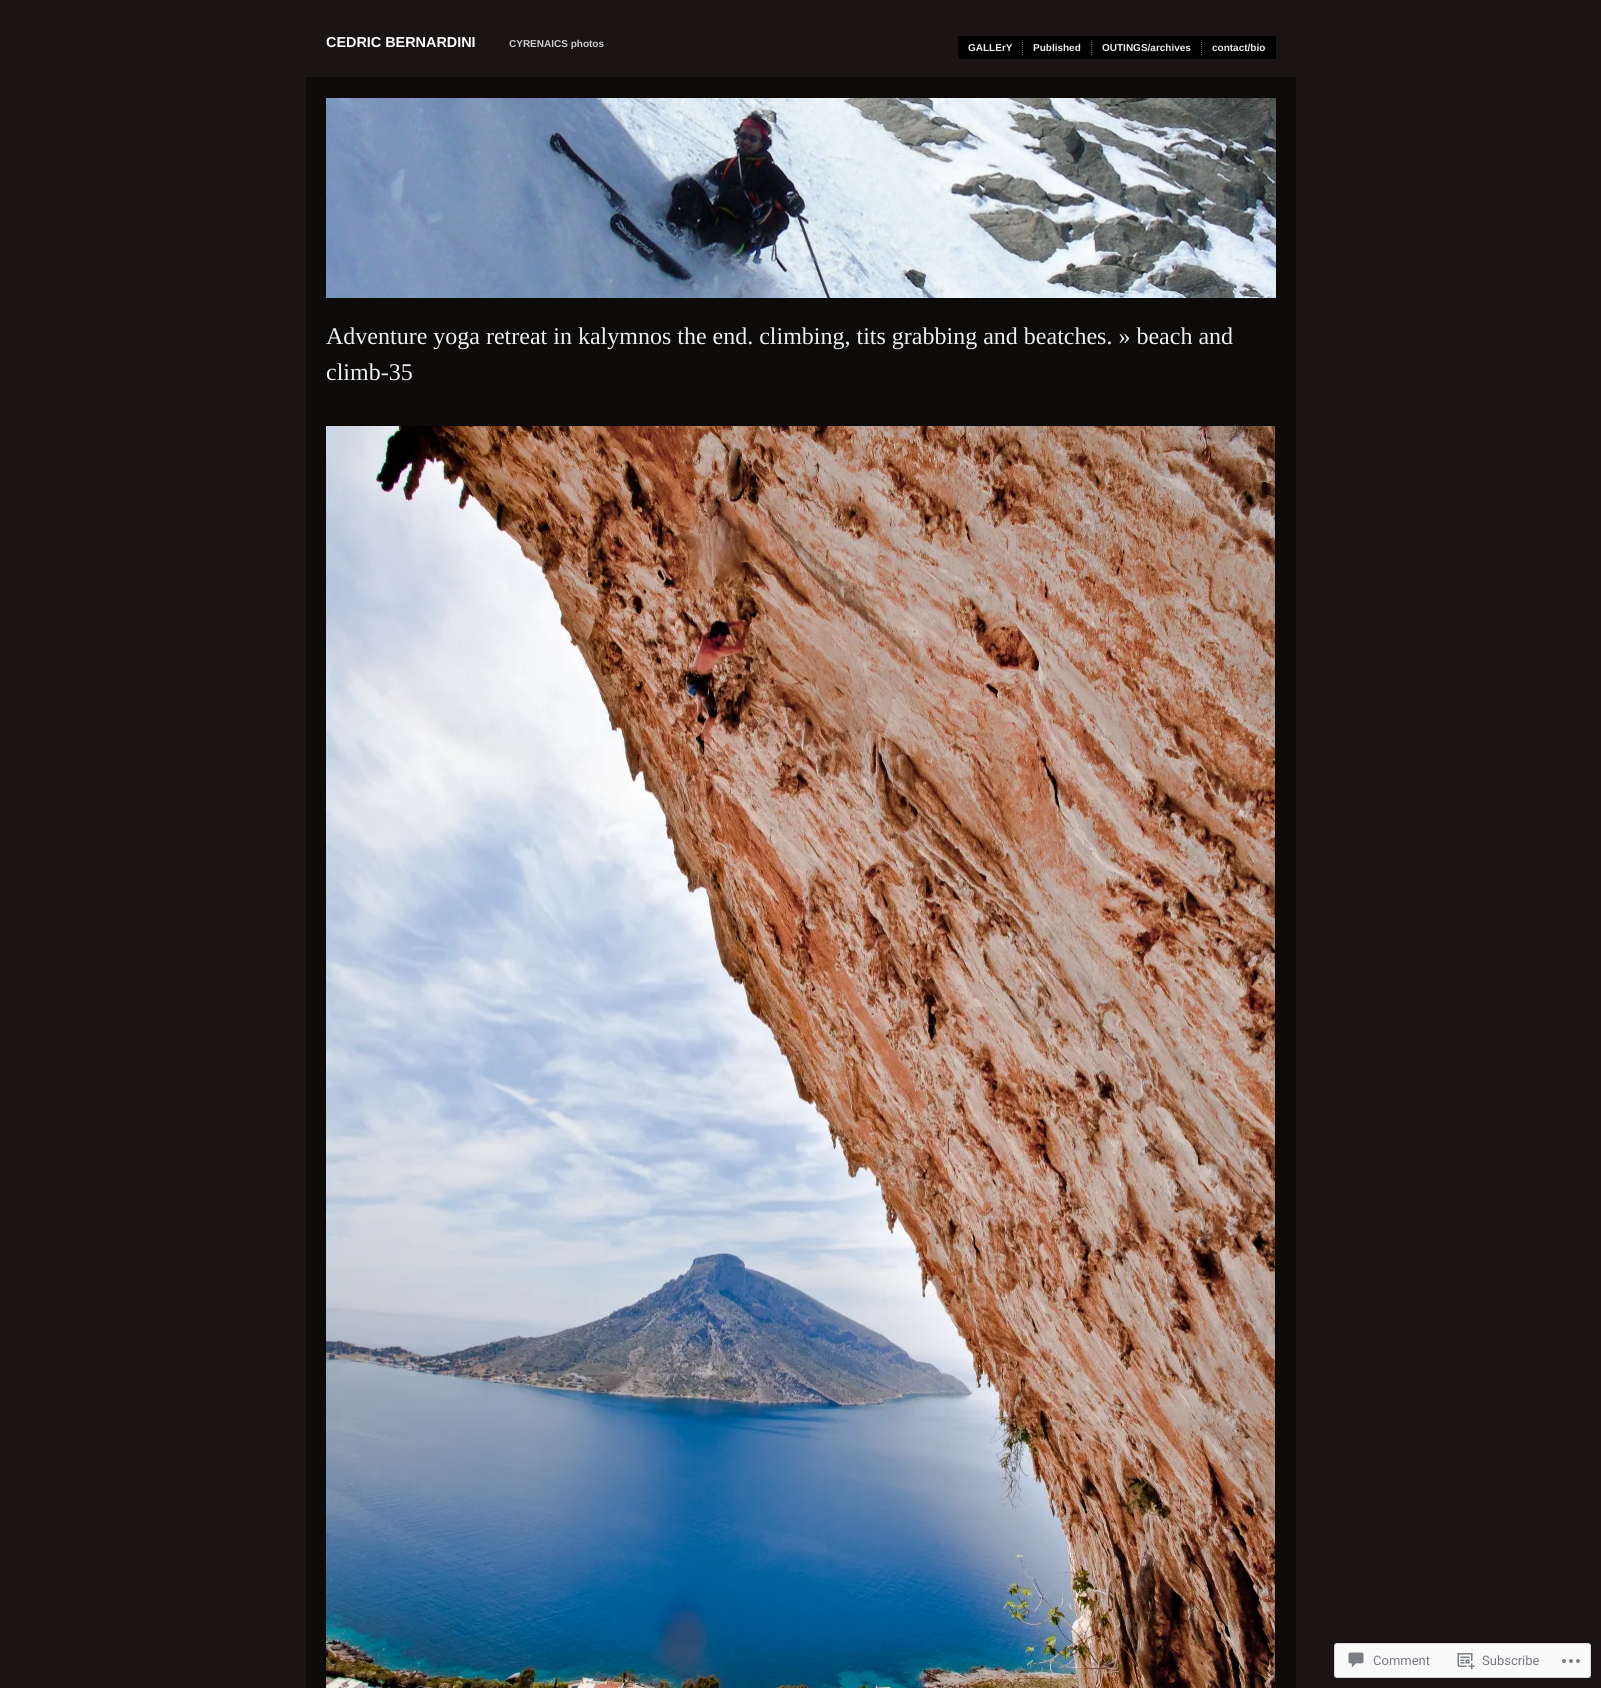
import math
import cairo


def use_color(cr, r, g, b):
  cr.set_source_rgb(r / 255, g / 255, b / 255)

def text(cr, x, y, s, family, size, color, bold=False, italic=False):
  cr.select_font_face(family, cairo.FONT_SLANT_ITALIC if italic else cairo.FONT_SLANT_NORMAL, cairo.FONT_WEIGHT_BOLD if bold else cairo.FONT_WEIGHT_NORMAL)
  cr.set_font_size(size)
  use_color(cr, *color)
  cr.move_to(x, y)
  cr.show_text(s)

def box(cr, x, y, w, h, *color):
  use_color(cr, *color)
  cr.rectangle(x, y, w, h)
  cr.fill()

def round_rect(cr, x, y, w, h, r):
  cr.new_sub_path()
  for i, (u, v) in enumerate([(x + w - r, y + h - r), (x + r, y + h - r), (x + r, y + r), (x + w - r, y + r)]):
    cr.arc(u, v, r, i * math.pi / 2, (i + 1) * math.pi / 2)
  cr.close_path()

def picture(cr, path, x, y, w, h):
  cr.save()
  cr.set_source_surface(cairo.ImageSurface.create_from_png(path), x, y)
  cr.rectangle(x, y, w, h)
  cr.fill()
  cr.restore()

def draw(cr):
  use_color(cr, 26, 20, 20)
  cr.paint()
  box(cr, 958, 36, 318, 23, 0, 0, 0)
  cr.new_path()
  cr.move_to(1022.5, 40)
  cr.line_to(1022.5, 55)
  use_color(cr, 102, 102, 102)
  cr.set_line_width(1)
  cr.set_dash([1, 1])
  cr.stroke()
  cr.new_path()
  cr.move_to(1091.5, 40)
  cr.line_to(1091.5, 55)
  cr.stroke()
  cr.new_path()
  cr.move_to(1201.5, 40)
  cr.line_to(1201.5, 55)
  cr.stroke()
  box(cr, 306, 77, 990, 1611, 13, 10, 10)
  picture(cr, "img_01.png", 326, 98, 950, 200)
  picture(cr, "img_02.png", 326, 426, 949, 1262)
  use_color(cr, 250, 250, 250)
  round_rect(cr, 1334.5, 1643.5, 256, 34, 2.5)
  cr.fill_preserve()
  use_color(cr, 216, 216, 218)
  cr.set_dash([])
  cr.stroke()
  picture(cr, "img_03.png", 1348, 1652, 16, 16)
  picture(cr, "img_04.png", 1457, 1653, 18, 17)
  picture(cr, "img_05.png", 1562, 1659, 18, 4)
  text(cr, 326, 47, "CEDRIC BERNARDINI", "Liberation Sans", 14.4, (255, 255, 255), bold=True)
  text(cr, 509, 47, "CYRENAICS photos", "Liberation Sans", 10, (204, 204, 204), bold=True)
  text(cr, 968, 51, "GALLErY", "Liberation Sans", 10, (238, 238, 238), bold=True)
  text(cr, 1033, 51, "Published", "Liberation Sans", 10, (238, 238, 238), bold=True)
  text(cr, 1102, 51, "OUTINGS/archives", "Liberation Sans", 10, (238, 238, 238), bold=True)
  text(cr, 1212, 51, "contact/bio", "Liberation Sans", 10, (238, 238, 238), bold=True)
  text(cr, 326, 344, "Adventure yoga retreat in kalymnos the end. climbing, tits grabbing and beatches. » beach and", "Liberation Serif", 24, (238, 238, 238))
  text(cr, 326, 380, "climb-35", "Liberation Serif", 24, (238, 238, 238))
  text(cr, 1373, 1665, "Comment", "Roboto", 13, (118, 122, 128))
  text(cr, 1482, 1665, "Subscribe", "Roboto", 13, (118, 122, 128))


surface = cairo.ImageSurface(cairo.FORMAT_RGB24, 1601, 1688)
cr = cairo.Context(surface)
options = cairo.FontOptions()
options.set_hint_metrics(cairo.HINT_METRICS_OFF)
options.set_hint_style(cairo.HINT_STYLE_NONE)
cr.set_font_options(options)
cr.set_miter_limit(4)
draw(cr)
surface.write_to_png("out.png")
